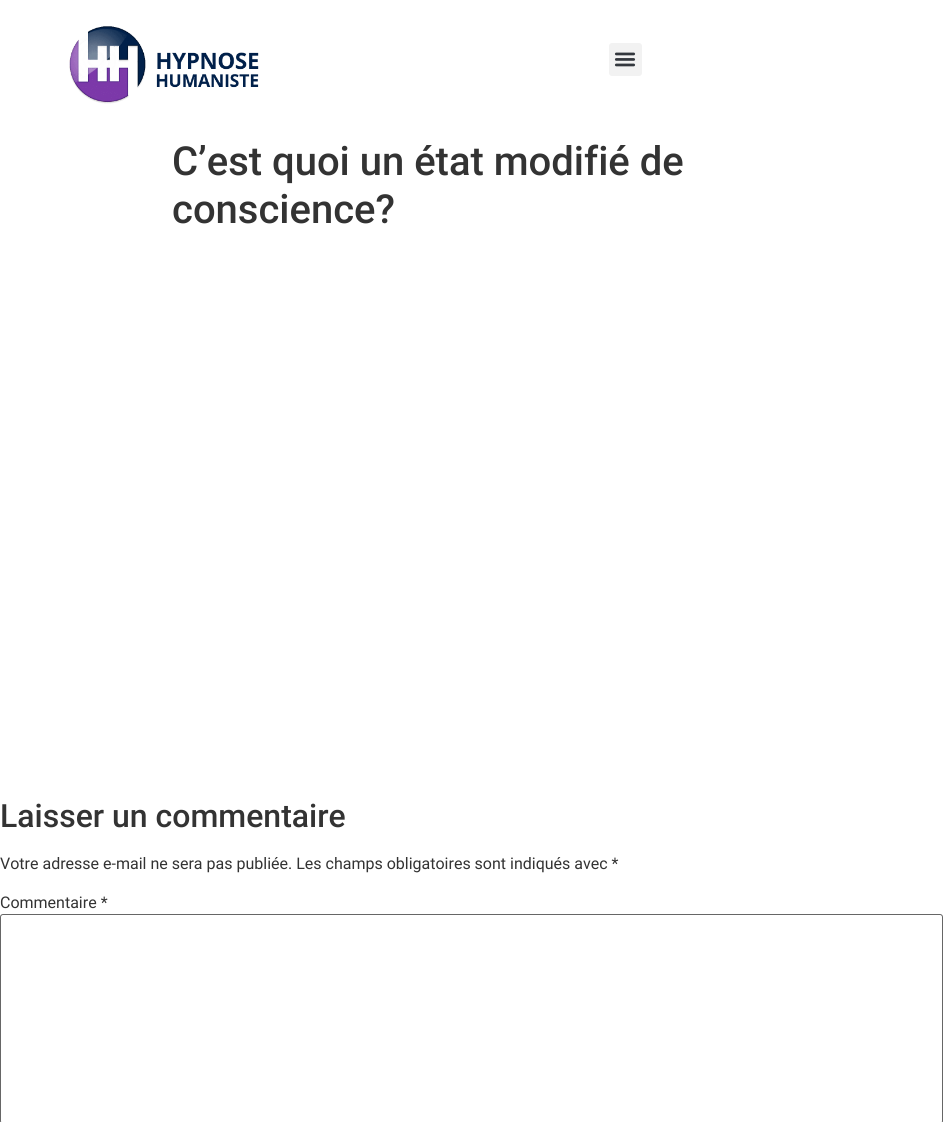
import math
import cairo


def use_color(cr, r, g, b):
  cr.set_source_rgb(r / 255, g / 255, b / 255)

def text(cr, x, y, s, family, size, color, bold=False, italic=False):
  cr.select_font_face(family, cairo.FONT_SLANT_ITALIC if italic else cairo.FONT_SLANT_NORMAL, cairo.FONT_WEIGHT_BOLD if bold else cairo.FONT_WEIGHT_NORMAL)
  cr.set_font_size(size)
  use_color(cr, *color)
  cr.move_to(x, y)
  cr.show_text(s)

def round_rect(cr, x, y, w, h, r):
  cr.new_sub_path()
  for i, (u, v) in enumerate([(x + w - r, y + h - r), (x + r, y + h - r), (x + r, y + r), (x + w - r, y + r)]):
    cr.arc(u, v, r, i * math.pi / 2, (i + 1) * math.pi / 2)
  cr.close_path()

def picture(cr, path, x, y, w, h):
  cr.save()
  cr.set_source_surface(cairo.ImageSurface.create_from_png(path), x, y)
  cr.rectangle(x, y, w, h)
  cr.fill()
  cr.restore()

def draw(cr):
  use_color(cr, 255, 255, 255)
  cr.paint()
  picture(cr, "img_01.png", 69, 26, 190, 78)
  use_color(cr, 242, 242, 242)
  round_rect(cr, 609, 43, 33, 33, 3)
  cr.fill()
  picture(cr, "img_02.png", 614, 52, 22, 15)
  round_rect(cr, 0.5, 914.5, 942, 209, 2.5)
  use_color(cr, 102, 102, 102)
  cr.set_line_width(1)
  cr.stroke()
  text(cr, 172, 175, "C’est quoi un état modifié de", "Roboto Medium", 40, (51, 51, 51))
  text(cr, 172, 223, "conscience?", "Roboto Medium", 40, (51, 51, 51))
  text(cr, 0, 827, "Laisser un commentaire", "Roboto Medium", 32, (51, 51, 51))
  text(cr, 0, 869, "Votre adresse e-mail ne sera pas publiée. Les champs obligatoires sont indiqués avec *", "Roboto", 16, (51, 51, 51))
  text(cr, 0, 908, "Commentaire *", "Roboto", 16, (51, 51, 51))


surface = cairo.ImageSurface(cairo.FORMAT_RGB24, 943, 1122)
cr = cairo.Context(surface)
options = cairo.FontOptions()
options.set_hint_metrics(cairo.HINT_METRICS_OFF)
options.set_hint_style(cairo.HINT_STYLE_NONE)
cr.set_font_options(options)
cr.set_miter_limit(4)
draw(cr)
surface.write_to_png("out.png")
